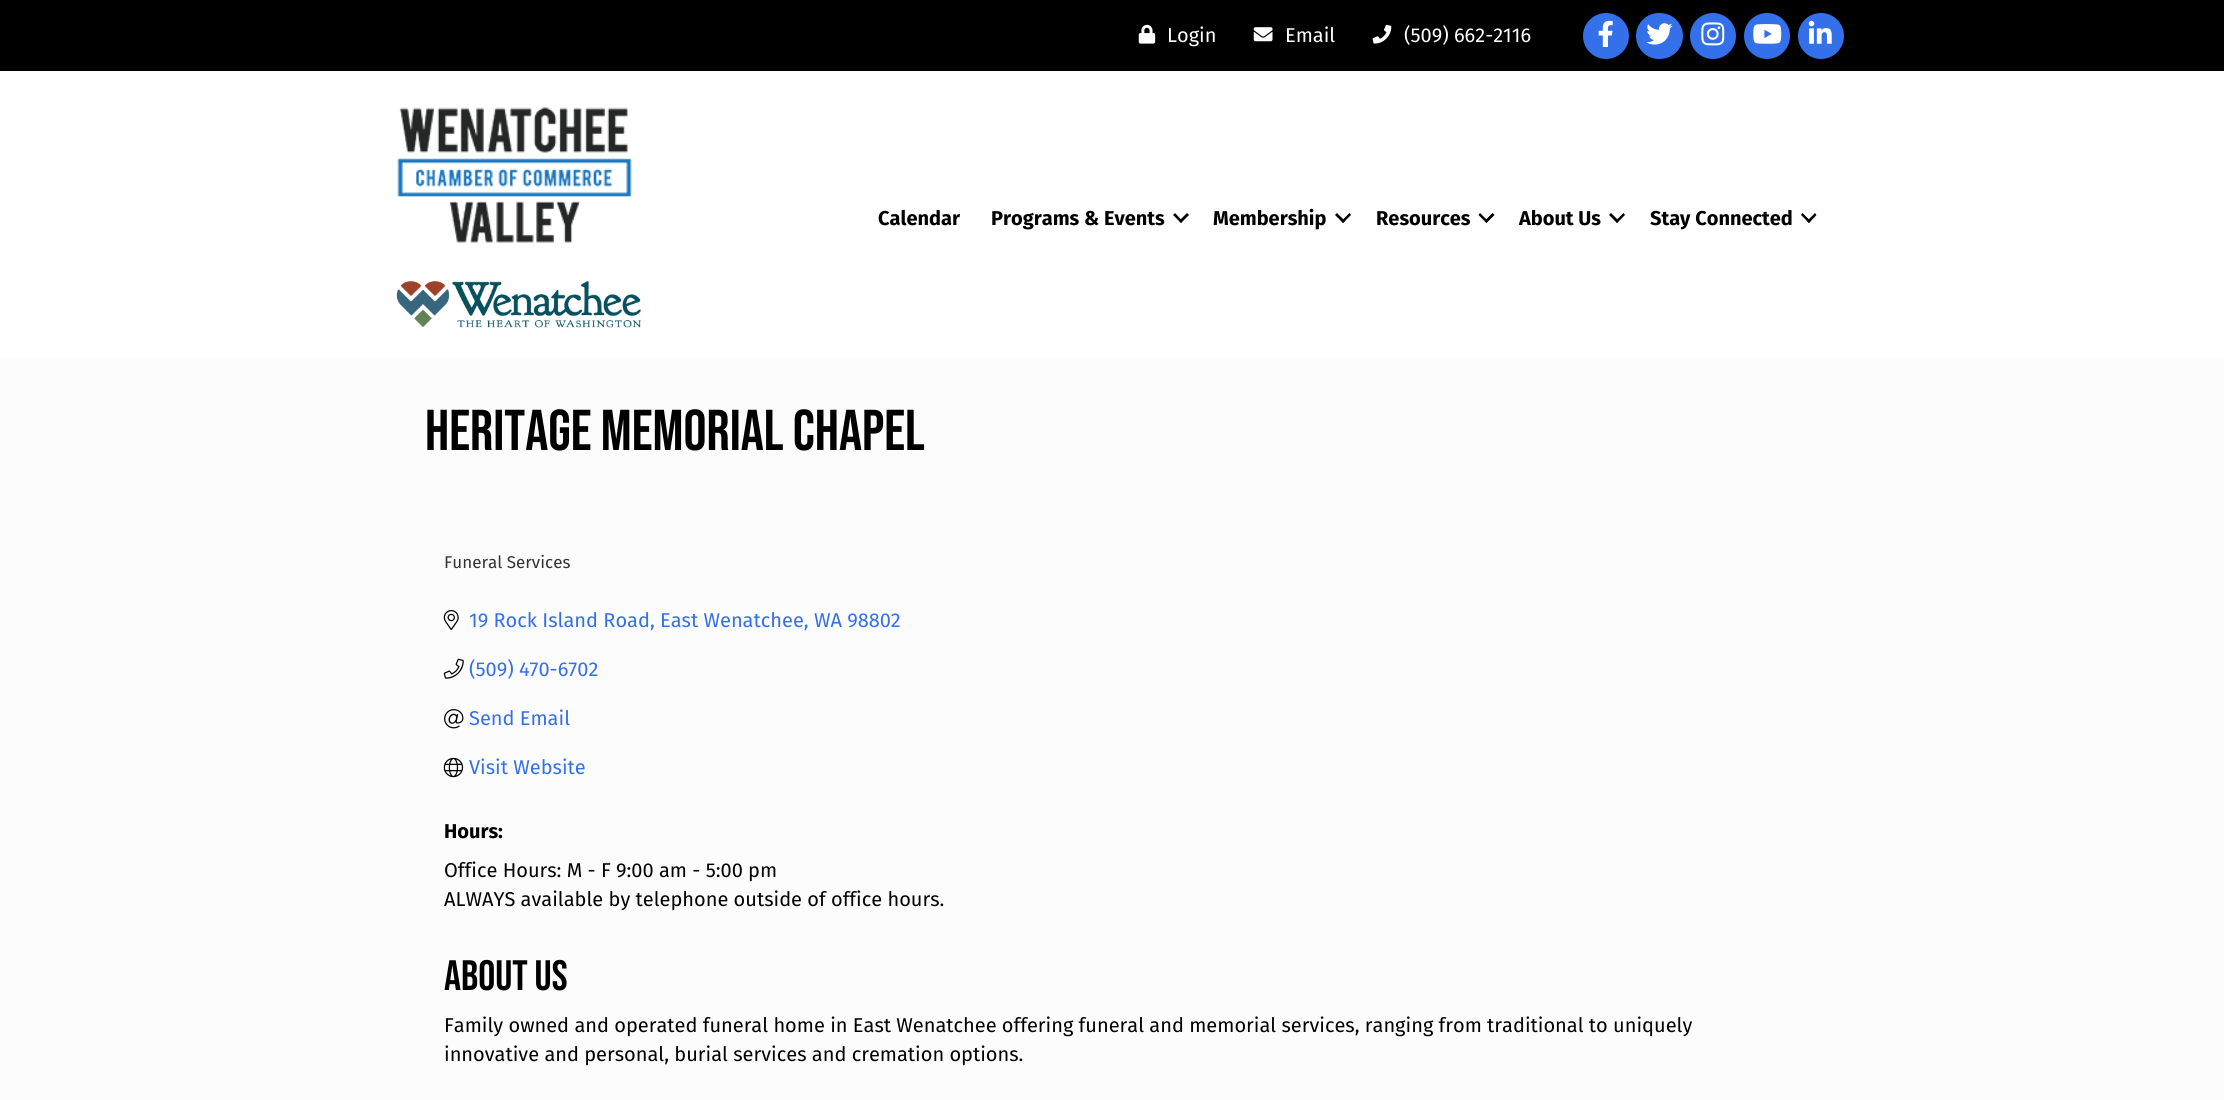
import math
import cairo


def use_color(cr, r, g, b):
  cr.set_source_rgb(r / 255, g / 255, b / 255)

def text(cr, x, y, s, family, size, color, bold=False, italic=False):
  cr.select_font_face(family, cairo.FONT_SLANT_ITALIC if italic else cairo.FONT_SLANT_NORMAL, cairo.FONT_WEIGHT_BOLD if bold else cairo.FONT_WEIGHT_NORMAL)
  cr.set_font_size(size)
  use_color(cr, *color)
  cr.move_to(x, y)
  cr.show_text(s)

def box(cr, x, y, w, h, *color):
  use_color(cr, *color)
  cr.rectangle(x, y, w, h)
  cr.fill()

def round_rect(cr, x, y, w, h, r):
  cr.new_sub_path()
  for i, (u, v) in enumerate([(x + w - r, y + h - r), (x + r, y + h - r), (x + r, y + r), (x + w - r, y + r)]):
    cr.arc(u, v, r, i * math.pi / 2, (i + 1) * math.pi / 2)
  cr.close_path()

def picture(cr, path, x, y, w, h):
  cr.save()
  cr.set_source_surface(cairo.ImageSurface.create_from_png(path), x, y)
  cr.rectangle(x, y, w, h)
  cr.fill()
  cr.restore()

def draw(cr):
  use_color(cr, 255, 255, 255)
  cr.paint()
  box(cr, 0, 0, 2224, 71, 0, 0, 0)
  picture(cr, "img_01.png", 1138, 24, 18, 20)
  picture(cr, "img_02.png", 1253, 27, 20, 15)
  picture(cr, "img_03.png", 1372, 24, 20, 20)
  use_color(cr, 51, 112, 233)
  cr.arc(1606, 36, 23, 0, 2 * math.pi)
  cr.fill()
  picture(cr, "img_04.png", 1598, 20, 15, 27)
  round_rect(cr, 1636, 13, 47, 46, 23)
  cr.fill()
  picture(cr, "img_05.png", 1646, 23, 27, 22)
  cr.arc(1713, 36, 23, 0, 2 * math.pi)
  cr.fill()
  picture(cr, "img_06.png", 1701, 22, 24, 24)
  cr.arc(1767, 36, 23, 0, 2 * math.pi)
  cr.fill()
  picture(cr, "img_07.png", 1753, 24, 29, 20)
  cr.arc(1821, 36, 23, 0, 2 * math.pi)
  cr.fill()
  picture(cr, "img_08.png", 1808, 20, 24, 24)
  picture(cr, "img_09.png", 397, 107, 235, 136)
  picture(cr, "img_10.png", 396, 281, 245, 47)
  use_color(cr, 0, 0, 0)
  cr.new_path()
  cr.move_to(1187, 213)
  cr.line_to(1189, 215)
  cr.line_to(1181, 223)
  cr.line_to(1179, 221)
  cr.close_path()
  cr.fill()
  cr.new_path()
  cr.move_to(1175, 213)
  cr.line_to(1182.5, 221)
  cr.line_to(1181, 223)
  cr.line_to(1173, 215)
  cr.close_path()
  cr.fill()
  cr.new_path()
  cr.move_to(1349.5, 213)
  cr.line_to(1351, 215)
  cr.line_to(1343, 223)
  cr.line_to(1341.5, 221)
  cr.close_path()
  cr.fill()
  cr.new_path()
  cr.move_to(1337, 213)
  cr.line_to(1345, 221)
  cr.line_to(1343, 223)
  cr.line_to(1335, 215)
  cr.close_path()
  cr.fill()
  cr.new_path()
  cr.move_to(1492.5, 213)
  cr.line_to(1494.5, 215)
  cr.line_to(1486.5, 223)
  cr.line_to(1484.5, 221)
  cr.close_path()
  cr.fill()
  cr.new_path()
  cr.move_to(1480, 213)
  cr.line_to(1488, 221)
  cr.line_to(1486.5, 223)
  cr.line_to(1478.5, 215)
  cr.close_path()
  cr.fill()
  cr.new_path()
  cr.move_to(1623.5, 213)
  cr.line_to(1625, 215)
  cr.line_to(1617, 223)
  cr.line_to(1615.5, 221)
  cr.close_path()
  cr.fill()
  cr.new_path()
  cr.move_to(1611, 213)
  cr.line_to(1619, 221)
  cr.line_to(1617, 223)
  cr.line_to(1609, 215)
  cr.close_path()
  cr.fill()
  cr.new_path()
  cr.move_to(1815, 213)
  cr.line_to(1816.5, 215)
  cr.line_to(1809, 223)
  cr.line_to(1807, 221)
  cr.close_path()
  cr.fill()
  cr.new_path()
  cr.move_to(1802.5, 213)
  cr.line_to(1810.5, 221)
  cr.line_to(1809, 223)
  cr.line_to(1801, 215)
  cr.close_path()
  cr.fill()
  box(cr, 0, 359, 2224, 741, 252, 252, 252)
  picture(cr, "img_11.png", 443, 610, 16, 20)
  picture(cr, "img_12.png", 443, 658, 21, 21)
  picture(cr, "img_13.png", 444, 709, 20, 20)
  picture(cr, "img_14.png", 443, 757, 21, 21)
  text(cr, 1167, 42, "Login", "Fira Sans", 20, (255, 255, 255))
  text(cr, 1285, 42, "Email", "Fira Sans", 20, (255, 255, 255))
  text(cr, 1404, 42, "(509) 662-2116", "Fira Sans", 20, (255, 255, 255))
  text(cr, 878, 225, "Calendar", "Fira Sans", 20, (0, 0, 0), bold=True)
  text(cr, 991, 225, "Programs & Events", "Fira Sans", 20, (0, 0, 0), bold=True)
  text(cr, 1213, 225, "Membership", "Fira Sans", 20, (0, 0, 0), bold=True)
  text(cr, 1376, 225, "Resources", "Fira Sans", 20, (0, 0, 0), bold=True)
  text(cr, 1519, 225, "About Us", "Fira Sans", 20, (0, 0, 0), bold=True)
  text(cr, 1650, 225, "Stay Connected", "Fira Sans", 20, (0, 0, 0), bold=True)
  text(cr, 425, 450, "Heritage Memorial Chapel", "Bebas Neue", 57.5, (0, 0, 0))
  text(cr, 444, 568, "Funeral Services", "Fira Sans", 17, (50, 50, 50))
  text(cr, 469, 627, "19 Rock Island Road, East Wenatchee, WA 98802", "Fira Sans", 20, (51, 112, 233))
  text(cr, 469, 676, "(509) 470-6702", "Fira Sans", 20, (51, 112, 233))
  text(cr, 469, 725, "Send Email", "Fira Sans", 20, (51, 112, 233))
  text(cr, 469, 774, "Visit Website", "Fira Sans", 20, (51, 112, 233))
  text(cr, 444, 838, "Hours:", "Fira Sans", 20, (0, 0, 0), bold=True)
  text(cr, 444, 877, "Office Hours: M - F 9:00 am - 5:00 pm", "Fira Sans", 20, (0, 0, 0))
  text(cr, 444, 906, "ALWAYS available by telephone outside of office hours.", "Fira Sans", 20, (0, 0, 0))
  text(cr, 444, 990, "About Us", "Bebas Neue", 42.5, (0, 0, 0))
  text(cr, 444, 1032, "Family owned and operated funeral home in East Wenatchee offering funeral and memorial services, ranging from traditional to uniquely", "Fira Sans", 20, (0, 0, 0))
  text(cr, 444, 1061, "innovative and personal, burial services and cremation options.", "Fira Sans", 20, (0, 0, 0))


surface = cairo.ImageSurface(cairo.FORMAT_RGB24, 2224, 1100)
cr = cairo.Context(surface)
options = cairo.FontOptions()
options.set_hint_metrics(cairo.HINT_METRICS_OFF)
options.set_hint_style(cairo.HINT_STYLE_NONE)
cr.set_font_options(options)
cr.set_miter_limit(4)
draw(cr)
surface.write_to_png("out.png")
